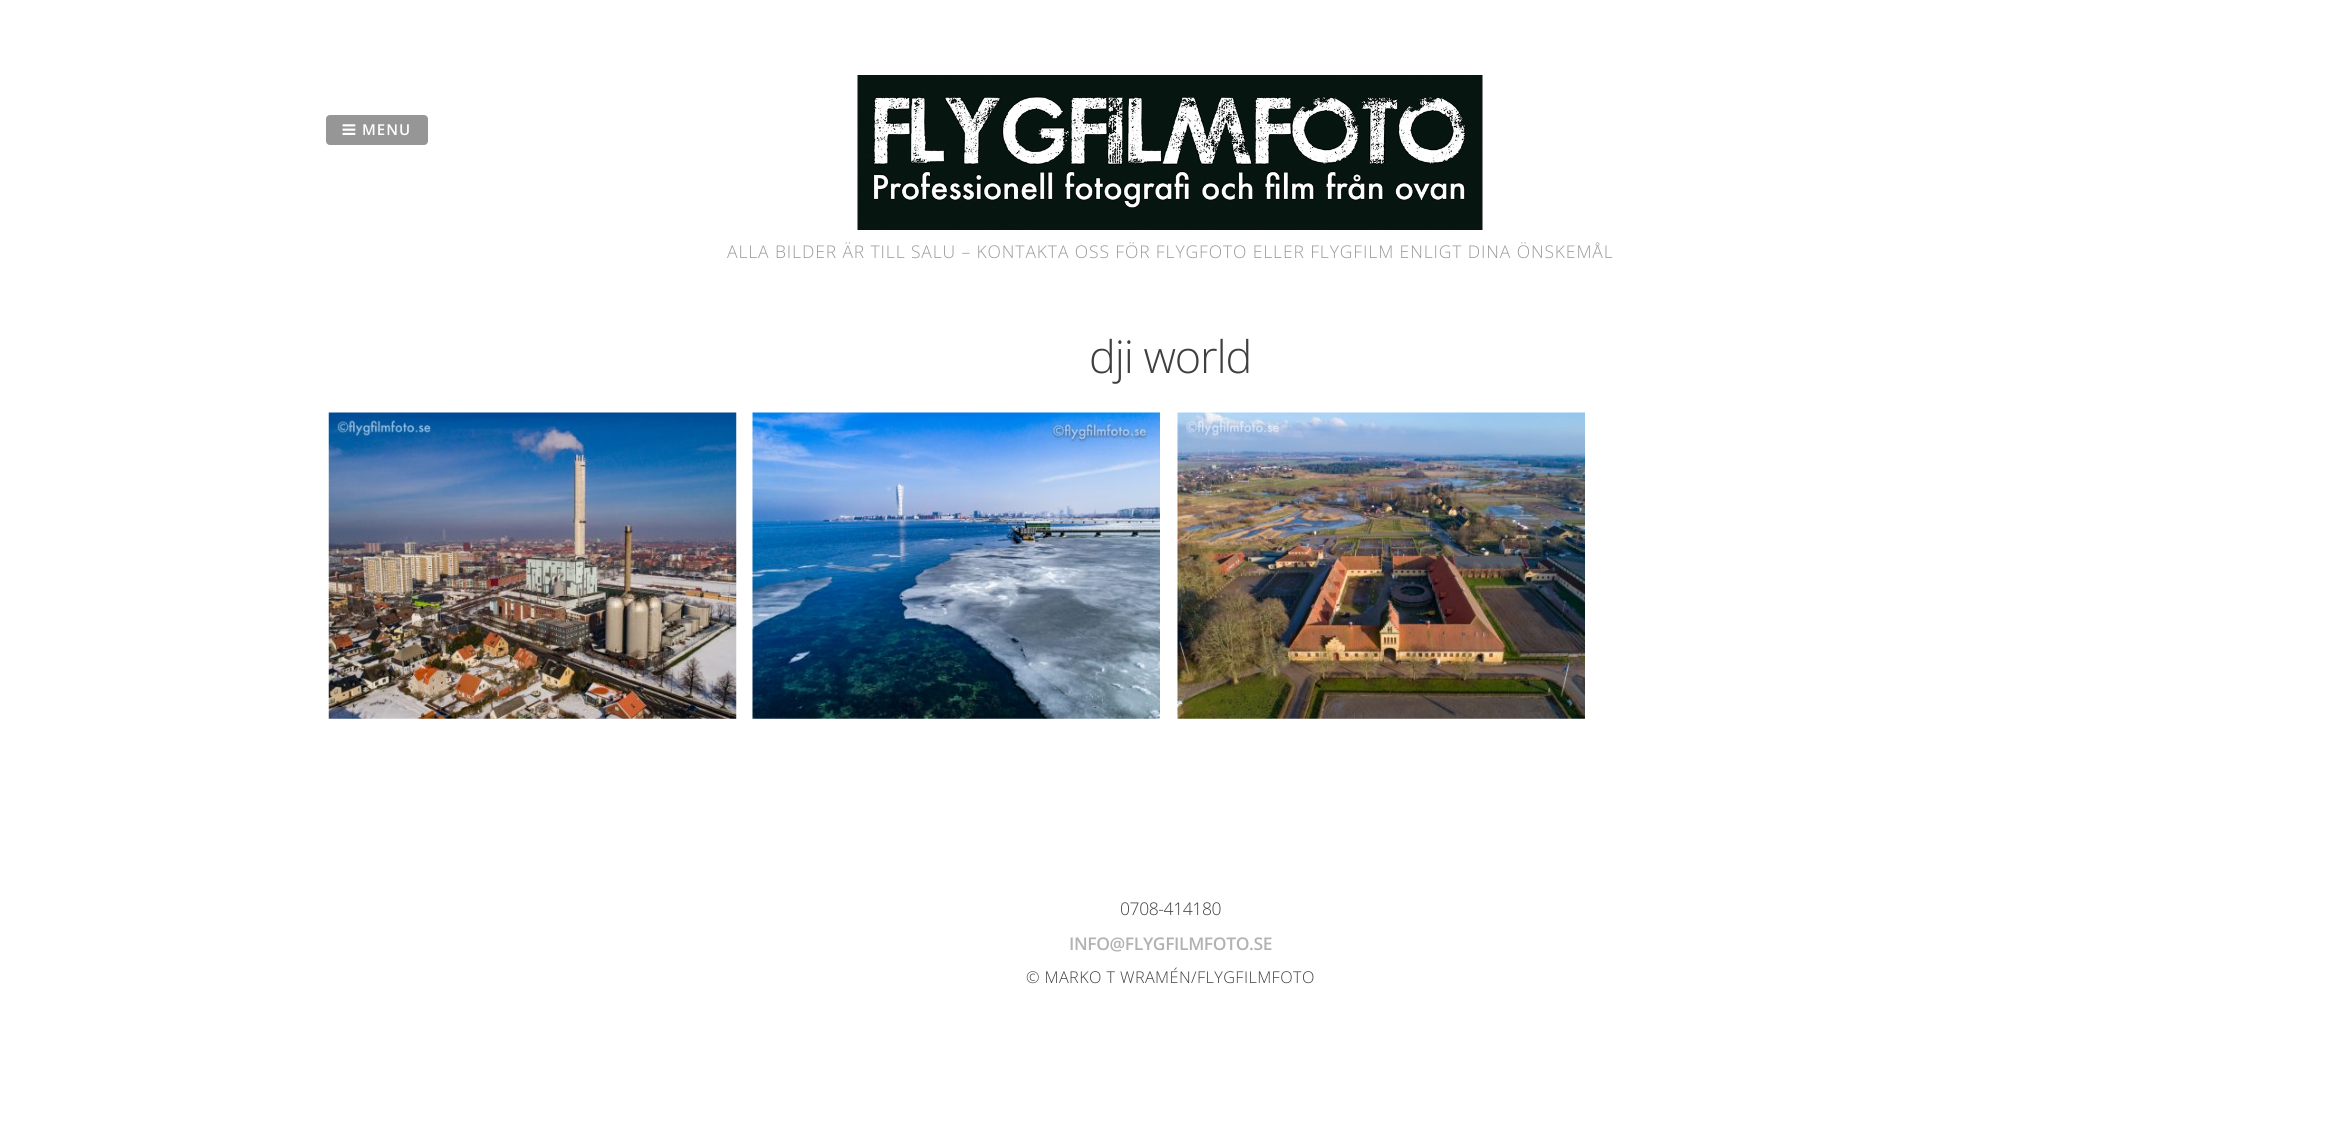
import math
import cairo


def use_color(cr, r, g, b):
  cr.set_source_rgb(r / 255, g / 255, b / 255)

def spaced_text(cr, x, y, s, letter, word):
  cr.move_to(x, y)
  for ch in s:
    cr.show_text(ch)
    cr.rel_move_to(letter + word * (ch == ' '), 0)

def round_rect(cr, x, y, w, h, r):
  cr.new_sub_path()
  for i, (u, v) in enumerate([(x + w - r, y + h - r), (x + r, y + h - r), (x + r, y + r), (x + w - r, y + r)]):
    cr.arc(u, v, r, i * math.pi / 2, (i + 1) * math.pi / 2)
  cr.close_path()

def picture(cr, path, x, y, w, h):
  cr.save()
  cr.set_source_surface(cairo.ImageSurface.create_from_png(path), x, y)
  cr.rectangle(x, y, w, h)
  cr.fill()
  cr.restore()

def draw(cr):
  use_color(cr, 255, 255, 255)
  cr.paint()
  use_color(cr, 150, 150, 150)
  round_rect(cr, 326.5, 115.5, 101, 29, 3.5)
  cr.fill_preserve()
  cr.set_line_width(1)
  cr.stroke()
  picture(cr, "img_01.png", 342, 124, 14, 11)
  picture(cr, "img_02.png", 857, 75, 626, 155)
  picture(cr, "img_03.png", 328, 412, 409, 307)
  picture(cr, "img_04.png", 752, 412, 408, 307)
  picture(cr, "img_05.png", 1177, 412, 408, 307)
  cr.select_font_face("Open Sans SemiBold")
  cr.set_font_size(15)
  use_color(cr, 255, 255, 255)
  spaced_text(cr, 362, 135, "MENU", 1, 0)
  cr.select_font_face("Open Sans Light")
  cr.set_font_size(17.5)
  use_color(cr, 153, 153, 153)
  spaced_text(cr, 727, 258, "ALLA BILDER ÄR TILL SALU – KONTAKTA OSS FÖR FLYGFOTO ELLER FLYGFILM ENLIGT DINA ÖNSKEMÅL", 0.88, 0)
  cr.set_font_size(45)
  use_color(cr, 63, 63, 63)
  spaced_text(cr, 1089, 373, "dji world", -1.1, 0)
  cr.set_font_size(17.5)
  spaced_text(cr, 1120, 915, "0708-414180", -0.4, 0)
  cr.select_font_face("Open Sans SemiBold")
  use_color(cr, 178, 178, 178)
  spaced_text(cr, 1069, 950, "INFO@FLYGFILMFOTO.SE", -0.4, 0)
  cr.select_font_face("Open Sans Light")
  cr.set_font_size(16.25)
  use_color(cr, 63, 63, 63)
  spaced_text(cr, 1026, 983, "© MARKO T WRAMÉN/FLYGFILMFOTO", 0.4, 0)


surface = cairo.ImageSurface(cairo.FORMAT_RGB24, 2340, 1123)
cr = cairo.Context(surface)
options = cairo.FontOptions()
options.set_hint_metrics(cairo.HINT_METRICS_OFF)
options.set_hint_style(cairo.HINT_STYLE_NONE)
cr.set_font_options(options)
cr.set_miter_limit(4)
draw(cr)
surface.write_to_png("out.png")
